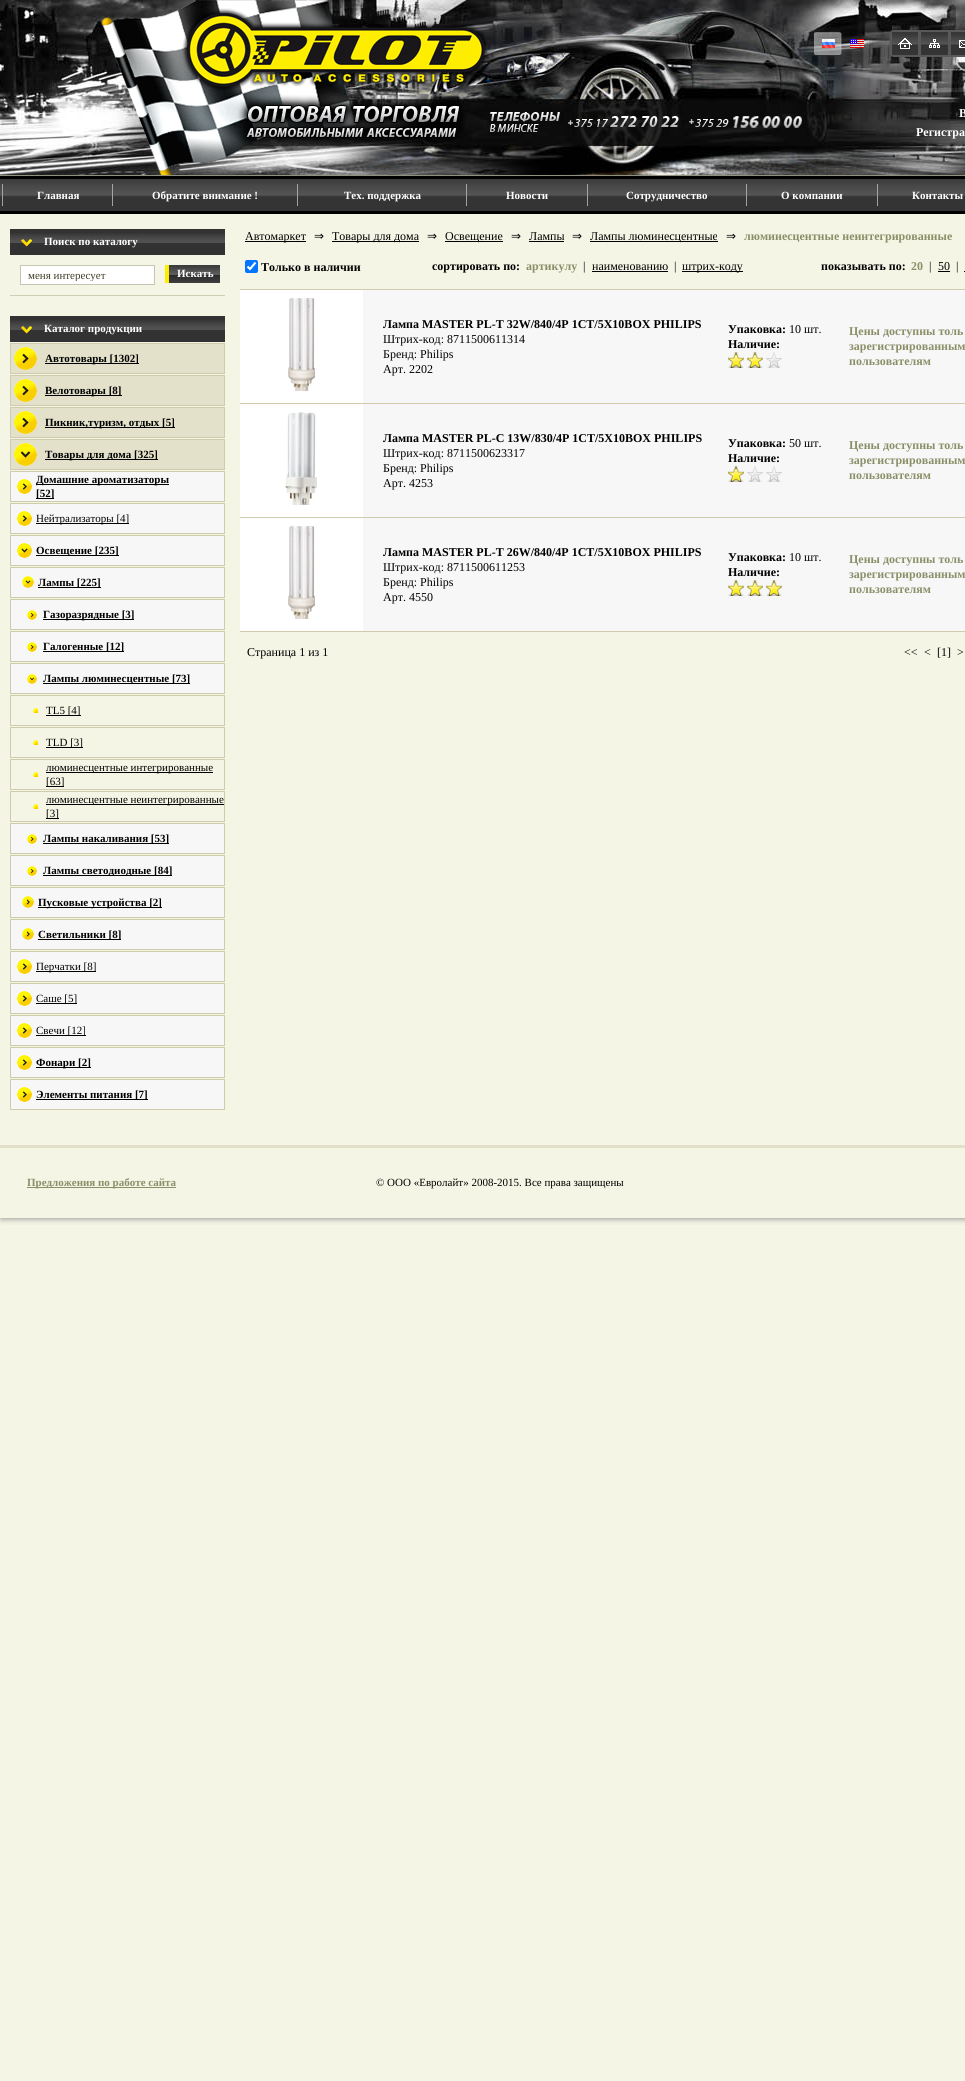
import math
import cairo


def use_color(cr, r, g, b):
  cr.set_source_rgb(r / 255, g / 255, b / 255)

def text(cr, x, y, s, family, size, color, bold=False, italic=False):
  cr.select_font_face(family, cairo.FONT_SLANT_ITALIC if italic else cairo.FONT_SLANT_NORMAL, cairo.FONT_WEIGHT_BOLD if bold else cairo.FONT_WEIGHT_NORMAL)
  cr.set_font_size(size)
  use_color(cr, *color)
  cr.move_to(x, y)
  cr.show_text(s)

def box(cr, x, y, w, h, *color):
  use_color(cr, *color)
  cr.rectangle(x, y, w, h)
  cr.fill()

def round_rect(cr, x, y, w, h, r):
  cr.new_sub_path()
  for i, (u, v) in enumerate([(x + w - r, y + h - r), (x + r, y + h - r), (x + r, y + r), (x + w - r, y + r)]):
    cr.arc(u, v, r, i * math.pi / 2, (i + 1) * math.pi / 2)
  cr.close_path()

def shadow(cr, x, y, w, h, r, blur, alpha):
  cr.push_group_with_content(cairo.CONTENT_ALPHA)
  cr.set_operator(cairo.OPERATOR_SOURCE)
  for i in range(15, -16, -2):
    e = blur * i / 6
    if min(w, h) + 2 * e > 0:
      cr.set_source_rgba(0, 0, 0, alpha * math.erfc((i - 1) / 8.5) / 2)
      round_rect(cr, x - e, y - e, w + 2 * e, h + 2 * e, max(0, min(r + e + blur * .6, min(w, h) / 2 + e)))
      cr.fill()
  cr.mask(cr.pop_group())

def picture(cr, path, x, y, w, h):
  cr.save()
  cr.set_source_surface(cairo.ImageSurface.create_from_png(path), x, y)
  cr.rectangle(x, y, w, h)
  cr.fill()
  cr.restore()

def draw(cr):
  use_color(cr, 244, 245, 229)
  cr.paint()
  picture(cr, "img_01.png", 0, 0, 965, 175)
  picture(cr, "img_02.png", 100, 0, 390, 175)
  picture(cr, "img_03.png", 814, 32, 28, 23)
  picture(cr, "img_04.png", 822, 39, 13, 9)
  picture(cr, "img_05.png", 850, 39, 14, 9)
  picture(cr, "img_06.png", 889, 30, 76, 27)
  picture(cr, "img_07.png", 892, 32, 26, 23)
  picture(cr, "img_08.png", 921, 32, 27, 23)
  picture(cr, "img_09.png", 951, 32, 14, 23)
  picture(cr, "img_10.png", 490, 112, 312, 20)
  box(cr, 0, 175, 965, 1, 145, 143, 125)
  cr.save()
  cr.rectangle(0, 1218, 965, 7)
  cr.clip()
  use_color(cr, 128, 128, 128)
  shadow(cr, 1, 214, 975, 1004, 0, 3.5, 1)
  cr.restore()
  box(cr, 0, 197, 965, 14, 52, 52, 52)
  picture(cr, "img_11.png", 0, 179, 965, 18)
  box(cr, 0, 176, 965, 3, 0, 0, 0)
  box(cr, 0, 211, 965, 3, 0, 0, 0)
  picture(cr, "img_12.png", 2, 184, 1, 22)
  picture(cr, "img_12.png", 112, 184, 1, 22)
  picture(cr, "img_12.png", 297, 184, 1, 22)
  picture(cr, "img_12.png", 466, 184, 1, 22)
  picture(cr, "img_12.png", 587, 184, 1, 22)
  picture(cr, "img_12.png", 746, 184, 1, 22)
  picture(cr, "img_12.png", 877, 184, 1, 22)
  box(cr, 10, 229, 215, 26, 50, 50, 50)
  picture(cr, "img_13.png", 10, 233, 215, 10)
  picture(cr, "img_14.png", 21, 239, 12, 8)
  use_color(cr, 255, 255, 255)
  cr.rectangle(20.5, 265.5, 134, 19)
  cr.fill_preserve()
  use_color(cr, 197, 197, 178)
  cr.set_line_width(1)
  cr.stroke()
  picture(cr, "img_15.png", 169, 265, 51, 18)
  box(cr, 165, 265, 4, 18, 255, 237, 0)
  box(cr, 10, 295, 215, 1, 207, 206, 183)
  box(cr, 10, 316, 215, 26, 50, 50, 50)
  picture(cr, "img_13.png", 10, 320, 215, 10)
  picture(cr, "img_14.png", 21, 326, 12, 8)
  use_color(cr, 227, 225, 202)
  cr.rectangle(10.5, 343.5, 214, 30)
  cr.fill_preserve()
  use_color(cr, 207, 203, 173)
  cr.stroke()
  picture(cr, "img_16.png", 14, 347, 23, 23)
  box(cr, 45, 363, 94, 1, 0, 0, 0)
  use_color(cr, 227, 225, 202)
  cr.rectangle(10.5, 375.5, 214, 30)
  cr.fill_preserve()
  use_color(cr, 207, 203, 173)
  cr.stroke()
  picture(cr, "img_16.png", 14, 379, 23, 23)
  box(cr, 45, 395, 77, 1, 0, 0, 0)
  use_color(cr, 227, 225, 202)
  cr.rectangle(10.5, 407.5, 214, 30)
  cr.fill_preserve()
  use_color(cr, 207, 203, 173)
  cr.stroke()
  picture(cr, "img_16.png", 14, 411, 23, 23)
  box(cr, 45, 427, 130, 1, 0, 0, 0)
  use_color(cr, 227, 225, 202)
  cr.rectangle(10.5, 439.5, 214, 30)
  cr.fill_preserve()
  use_color(cr, 207, 203, 173)
  cr.stroke()
  picture(cr, "img_17.png", 14, 443, 23, 23)
  box(cr, 45, 459, 113, 1, 0, 0, 0)
  use_color(cr, 247, 247, 247)
  cr.rectangle(10.5, 471.5, 214, 30)
  cr.fill_preserve()
  use_color(cr, 207, 203, 173)
  cr.stroke()
  picture(cr, "img_18.png", 17, 479, 15, 15)
  box(cr, 36, 484, 133, 1, 0, 0, 0)
  box(cr, 36, 498, 18, 1, 0, 0, 0)
  use_color(cr, 247, 247, 247)
  cr.rectangle(10.5, 503.5, 214, 30)
  cr.fill_preserve()
  use_color(cr, 207, 203, 173)
  cr.stroke()
  picture(cr, "img_18.png", 17, 511, 15, 15)
  box(cr, 36, 523, 93, 1, 0, 0, 0)
  use_color(cr, 247, 247, 247)
  cr.rectangle(10.5, 535.5, 214, 30)
  cr.fill_preserve()
  use_color(cr, 207, 203, 173)
  cr.stroke()
  picture(cr, "img_19.png", 17, 543, 15, 15)
  box(cr, 36, 555, 83, 1, 0, 0, 0)
  use_color(cr, 247, 247, 247)
  cr.rectangle(10.5, 567.5, 214, 30)
  cr.fill_preserve()
  use_color(cr, 207, 203, 173)
  cr.stroke()
  picture(cr, "img_20.png", 22, 576, 12, 12)
  box(cr, 38, 587, 63, 1, 0, 0, 0)
  use_color(cr, 247, 247, 247)
  cr.rectangle(10.5, 599.5, 214, 30)
  cr.fill_preserve()
  use_color(cr, 207, 203, 173)
  cr.stroke()
  picture(cr, "img_21.png", 27, 610, 10, 10)
  box(cr, 43, 619, 91, 1, 0, 0, 0)
  use_color(cr, 247, 247, 247)
  cr.rectangle(10.5, 631.5, 214, 30)
  cr.fill_preserve()
  use_color(cr, 207, 203, 173)
  cr.stroke()
  picture(cr, "img_21.png", 27, 642, 10, 10)
  box(cr, 43, 651, 81, 1, 0, 0, 0)
  use_color(cr, 247, 247, 247)
  cr.rectangle(10.5, 663.5, 214, 30)
  cr.fill_preserve()
  use_color(cr, 207, 203, 173)
  cr.stroke()
  picture(cr, "img_22.png", 27, 674, 10, 10)
  box(cr, 43, 683, 147, 1, 0, 0, 0)
  cr.rectangle(10.5, 695.5, 214, 30)
  use_color(cr, 207, 203, 173)
  cr.stroke()
  box(cr, 33, 708, 5, 5, 247, 247, 247)
  picture(cr, "img_23.png", 33, 708, 5, 5)
  box(cr, 46, 715, 35, 1, 0, 0, 0)
  cr.rectangle(10.5, 727.5, 214, 30)
  use_color(cr, 207, 203, 173)
  cr.stroke()
  box(cr, 33, 740, 5, 5, 247, 247, 247)
  picture(cr, "img_23.png", 33, 740, 5, 5)
  box(cr, 46, 747, 37, 1, 0, 0, 0)
  cr.rectangle(10.5, 759.5, 214, 30)
  use_color(cr, 207, 203, 173)
  cr.stroke()
  box(cr, 33, 772, 5, 5, 247, 247, 247)
  picture(cr, "img_23.png", 33, 772, 5, 5)
  box(cr, 46, 772, 167, 1, 0, 0, 0)
  box(cr, 46, 786, 18, 1, 0, 0, 0)
  cr.rectangle(10.5, 791.5, 214, 30)
  use_color(cr, 207, 203, 173)
  cr.stroke()
  box(cr, 33, 804, 5, 5, 247, 247, 247)
  picture(cr, "img_23.png", 33, 804, 5, 5)
  box(cr, 46, 804, 178, 1, 0, 0, 0)
  box(cr, 46, 818, 13, 1, 0, 0, 0)
  use_color(cr, 247, 247, 247)
  cr.rectangle(10.5, 823.5, 214, 30)
  cr.fill_preserve()
  use_color(cr, 207, 203, 173)
  cr.stroke()
  picture(cr, "img_21.png", 27, 834, 10, 10)
  box(cr, 43, 843, 126, 1, 0, 0, 0)
  use_color(cr, 247, 247, 247)
  cr.rectangle(10.5, 855.5, 214, 30)
  cr.fill_preserve()
  use_color(cr, 207, 203, 173)
  cr.stroke()
  picture(cr, "img_21.png", 27, 866, 10, 10)
  box(cr, 43, 875, 129, 1, 0, 0, 0)
  use_color(cr, 247, 247, 247)
  cr.rectangle(10.5, 887.5, 214, 30)
  cr.fill_preserve()
  use_color(cr, 207, 203, 173)
  cr.stroke()
  picture(cr, "img_24.png", 22, 896, 12, 12)
  box(cr, 38, 907, 124, 1, 0, 0, 0)
  use_color(cr, 247, 247, 247)
  cr.rectangle(10.5, 919.5, 214, 30)
  cr.fill_preserve()
  use_color(cr, 207, 203, 173)
  cr.stroke()
  picture(cr, "img_24.png", 22, 928, 12, 12)
  box(cr, 38, 939, 83, 1, 0, 0, 0)
  use_color(cr, 247, 247, 247)
  cr.rectangle(10.5, 951.5, 214, 30)
  cr.fill_preserve()
  use_color(cr, 207, 203, 173)
  cr.stroke()
  picture(cr, "img_18.png", 17, 959, 15, 15)
  box(cr, 36, 971, 60, 1, 0, 0, 0)
  use_color(cr, 247, 247, 247)
  cr.rectangle(10.5, 983.5, 214, 30)
  cr.fill_preserve()
  use_color(cr, 207, 203, 173)
  cr.stroke()
  picture(cr, "img_18.png", 17, 991, 15, 15)
  box(cr, 36, 1003, 41, 1, 0, 0, 0)
  use_color(cr, 247, 247, 247)
  cr.rectangle(10.5, 1015.5, 214, 30)
  cr.fill_preserve()
  use_color(cr, 207, 203, 173)
  cr.stroke()
  picture(cr, "img_18.png", 17, 1023, 15, 15)
  box(cr, 36, 1035, 50, 1, 0, 0, 0)
  use_color(cr, 247, 247, 247)
  cr.rectangle(10.5, 1047.5, 214, 30)
  cr.fill_preserve()
  use_color(cr, 207, 203, 173)
  cr.stroke()
  picture(cr, "img_18.png", 17, 1055, 15, 15)
  box(cr, 36, 1067, 55, 1, 0, 0, 0)
  use_color(cr, 247, 247, 247)
  cr.rectangle(10.5, 1079.5, 214, 30)
  cr.fill_preserve()
  use_color(cr, 207, 203, 173)
  cr.stroke()
  picture(cr, "img_18.png", 17, 1087, 15, 15)
  box(cr, 36, 1099, 112, 1, 0, 0, 0)
  box(cr, 245, 241, 61, 1, 0, 0, 0)
  box(cr, 332, 241, 87, 1, 0, 0, 0)
  box(cr, 445, 241, 58, 1, 0, 0, 0)
  box(cr, 529, 241, 35, 1, 0, 0, 0)
  box(cr, 590, 241, 128, 1, 0, 0, 0)
  use_color(cr, 0, 117, 255)
  round_rect(cr, 245, 260, 13, 13, 2)
  cr.fill()
  cr.new_path()
  cr.move_to(247.5, 266.5)
  cr.line_to(250, 269)
  cr.line_to(255.5, 262.5)
  use_color(cr, 255, 255, 255)
  cr.set_line_width(2.1)
  cr.stroke()
  box(cr, 592, 271, 76, 1, 0, 0, 0)
  box(cr, 682, 271, 61, 1, 0, 0, 0)
  box(cr, 938, 271, 12, 1, 0, 0, 0)
  box(cr, 964, 271, 1, 1, 0, 0, 0)
  box(cr, 363, 290, 602, 341, 247, 247, 247)
  box(cr, 240, 290, 123, 113, 255, 255, 255)
  picture(cr, "img_25.png", 288, 298, 27, 93)
  picture(cr, "img_26.png", 728, 352, 16, 16)
  picture(cr, "img_26.png", 747, 352, 16, 16)
  picture(cr, "img_27.png", 766, 352, 16, 16)
  box(cr, 240, 289, 725, 1, 207, 203, 173)
  box(cr, 240, 404, 123, 113, 255, 255, 255)
  picture(cr, "img_28.png", 285, 412, 32, 93)
  picture(cr, "img_26.png", 728, 466, 16, 16)
  picture(cr, "img_27.png", 747, 466, 16, 16)
  picture(cr, "img_27.png", 766, 466, 16, 16)
  box(cr, 240, 403, 725, 1, 207, 203, 173)
  box(cr, 240, 518, 123, 113, 255, 255, 255)
  picture(cr, "img_25.png", 288, 526, 27, 93)
  picture(cr, "img_26.png", 728, 580, 16, 16)
  picture(cr, "img_26.png", 747, 580, 16, 16)
  picture(cr, "img_26.png", 766, 580, 16, 16)
  box(cr, 240, 517, 725, 1, 207, 203, 173)
  box(cr, 240, 631, 725, 1, 207, 203, 173)
  box(cr, 0, 1145, 965, 3, 227, 224, 201)
  box(cr, 27, 1187, 149, 1, 139, 143, 104)
  text(cr, 959, 117, "В", "Liberation Serif", 12, (255, 255, 255), bold=True)
  text(cr, 916, 136, "Регистра", "Liberation Serif", 12, (255, 255, 255), bold=True)
  text(cr, 37, 199, "Главная", "Liberation Serif", 11, (255, 255, 255), bold=True)
  text(cr, 152, 199, "Обратите внимание !", "Liberation Serif", 11, (255, 255, 255), bold=True)
  text(cr, 344, 199, "Тех. поддержка", "Liberation Serif", 11, (255, 255, 255), bold=True)
  text(cr, 506, 199, "Новости", "Liberation Serif", 11, (255, 255, 255), bold=True)
  text(cr, 626, 199, "Сотрудничество", "Liberation Serif", 11, (255, 255, 255), bold=True)
  text(cr, 781, 199, "О компании", "Liberation Serif", 11, (255, 255, 255), bold=True)
  text(cr, 912, 199, "Контакты", "Liberation Serif", 11, (255, 255, 255), bold=True)
  text(cr, 44, 245, "Поиск по каталогу", "Liberation Serif", 11, (255, 255, 255), bold=True)
  cr.save()
  cr.rectangle(28, 269, 119, 12)
  cr.clip()
  text(cr, 28, 279, "меня интересует", "Liberation Serif", 11, (65, 62, 37))
  cr.restore()
  text(cr, 177, 277, "Искать", "Liberation Serif", 11, (255, 255, 255), bold=True)
  text(cr, 44, 332, "Каталог продукции", "Liberation Serif", 11, (255, 255, 255), bold=True)
  text(cr, 45, 362, "Автотовары [1302]", "Liberation Serif", 11, (0, 0, 0), bold=True)
  text(cr, 45, 394, "Велотовары [8]", "Liberation Serif", 11, (0, 0, 0), bold=True)
  text(cr, 45, 426, "Пикник,туризм, отдых [5]", "Liberation Serif", 11, (0, 0, 0), bold=True)
  text(cr, 45, 458, "Товары для дома [325]", "Liberation Serif", 11, (0, 0, 0), bold=True)
  text(cr, 36, 483, "Домашние ароматизаторы", "Liberation Serif", 11, (0, 0, 0), bold=True)
  text(cr, 36, 497, "[52]", "Liberation Serif", 11, (0, 0, 0), bold=True)
  text(cr, 36, 522, "Нейтрализаторы [4]", "Liberation Serif", 11, (0, 0, 0))
  text(cr, 36, 554, "Освещение [235]", "Liberation Serif", 11, (0, 0, 0), bold=True)
  text(cr, 38, 586, "Лампы [225]", "Liberation Serif", 11, (0, 0, 0), bold=True)
  text(cr, 43, 618, "Газоразрядные [3]", "Liberation Serif", 11, (0, 0, 0), bold=True)
  text(cr, 43, 650, "Галогенные [12]", "Liberation Serif", 11, (0, 0, 0), bold=True)
  text(cr, 43, 682, "Лампы люминесцентные [73]", "Liberation Serif", 11, (0, 0, 0), bold=True)
  text(cr, 46, 714, "TL5 [4]", "Liberation Serif", 11, (0, 0, 0))
  text(cr, 46, 746, "TLD [3]", "Liberation Serif", 11, (0, 0, 0))
  text(cr, 46, 771, "люминесцентные интегрированные", "Liberation Serif", 11, (0, 0, 0))
  text(cr, 46, 785, "[63]", "Liberation Serif", 11, (0, 0, 0))
  text(cr, 46, 803, "люминесцентные неинтегрированные", "Liberation Serif", 11, (0, 0, 0))
  text(cr, 46, 817, "[3]", "Liberation Serif", 11, (0, 0, 0))
  text(cr, 43, 842, "Лампы накаливания [53]", "Liberation Serif", 11, (0, 0, 0), bold=True)
  text(cr, 43, 874, "Лампы светодиодные [84]", "Liberation Serif", 11, (0, 0, 0), bold=True)
  text(cr, 38, 906, "Пусковые устройства [2]", "Liberation Serif", 11, (0, 0, 0), bold=True)
  text(cr, 38, 938, "Светильники [8]", "Liberation Serif", 11, (0, 0, 0), bold=True)
  text(cr, 36, 970, "Перчатки [8]", "Liberation Serif", 11, (0, 0, 0))
  text(cr, 36, 1002, "Саше [5]", "Liberation Serif", 11, (0, 0, 0))
  text(cr, 36, 1034, "Свечи [12]", "Liberation Serif", 11, (0, 0, 0))
  text(cr, 36, 1066, "Фонари [2]", "Liberation Serif", 11, (0, 0, 0), bold=True)
  text(cr, 36, 1098, "Элементы питания [7]", "Liberation Serif", 11, (0, 0, 0), bold=True)
  text(cr, 245, 240, "Автомаркет", "Liberation Serif", 12, (0, 0, 0))
  text(cr, 314, 240, "⇒", "DejaVu Sans", 12, (0, 0, 0))
  text(cr, 332, 240, "Товары для дома", "Liberation Serif", 12, (0, 0, 0))
  text(cr, 427, 240, "⇒", "DejaVu Sans", 12, (0, 0, 0))
  text(cr, 445, 240, "Освещение", "Liberation Serif", 12, (0, 0, 0))
  text(cr, 511, 240, "⇒", "DejaVu Sans", 12, (0, 0, 0))
  text(cr, 529, 240, "Лампы", "Liberation Serif", 12, (0, 0, 0))
  text(cr, 572, 240, "⇒", "DejaVu Sans", 12, (0, 0, 0))
  text(cr, 590, 240, "Лампы люминесцентные", "Liberation Serif", 12, (0, 0, 0))
  text(cr, 726, 240, "⇒", "DejaVu Sans", 12, (0, 0, 0))
  text(cr, 744, 240, "люминесцентные неинтегрированные", "Liberation Serif", 12, (139, 143, 104), bold=True)
  text(cr, 261, 271, "Только в наличии", "Liberation Serif", 12, (0, 0, 0), bold=True)
  text(cr, 432, 270, "сортировать по:", "Liberation Serif", 12, (0, 0, 0), bold=True)
  text(cr, 526, 270, "артикулу", "Liberation Serif", 12, (139, 143, 104), bold=True)
  text(cr, 583, 270, "|", "Liberation Serif", 12, (0, 0, 0))
  text(cr, 592, 270, "наименованию", "Liberation Serif", 12, (0, 0, 0))
  text(cr, 674, 270, "|", "Liberation Serif", 12, (0, 0, 0))
  text(cr, 682, 270, "штрих-коду", "Liberation Serif", 12, (0, 0, 0))
  text(cr, 821, 270, "показывать по:", "Liberation Serif", 12, (0, 0, 0), bold=True)
  text(cr, 911, 270, "20", "Liberation Serif", 12, (139, 143, 104), bold=True)
  text(cr, 929, 270, "|", "Liberation Serif", 12, (0, 0, 0))
  text(cr, 938, 270, "50", "Liberation Serif", 12, (0, 0, 0))
  text(cr, 956, 270, "|", "Liberation Serif", 12, (0, 0, 0))
  text(cr, 383, 328, "Лампа MASTER PL-T 32W/840/4P 1CT/5X10BOX PHILIPS", "Liberation Serif", 12, (0, 0, 0), bold=True)
  text(cr, 383, 343, "Штрих-код: 8711500611314", "Liberation Serif", 12, (0, 0, 0))
  text(cr, 383, 358, "Бренд: Philips", "Liberation Serif", 12, (0, 0, 0))
  text(cr, 383, 373, "Арт. 2202", "Liberation Serif", 12, (0, 0, 0))
  text(cr, 728, 333, "Упаковка:", "Liberation Serif", 12, (0, 0, 0), bold=True)
  text(cr, 789, 333, "10 шт.", "Liberation Serif", 12, (0, 0, 0))
  text(cr, 728, 348, "Наличие:", "Liberation Serif", 12, (0, 0, 0), bold=True)
  text(cr, 849, 335, "Цены доступны толь", "Liberation Serif", 12, (139, 143, 104), bold=True)
  text(cr, 849, 350, "зарегистрированным", "Liberation Serif", 12, (139, 143, 104), bold=True)
  text(cr, 849, 365, "пользователям", "Liberation Serif", 12, (139, 143, 104), bold=True)
  text(cr, 383, 442, "Лампа MASTER PL-C 13W/830/4P 1CT/5X10BOX PHILIPS", "Liberation Serif", 12, (0, 0, 0), bold=True)
  text(cr, 383, 457, "Штрих-код: 8711500623317", "Liberation Serif", 12, (0, 0, 0))
  text(cr, 383, 472, "Бренд: Philips", "Liberation Serif", 12, (0, 0, 0))
  text(cr, 383, 487, "Арт. 4253", "Liberation Serif", 12, (0, 0, 0))
  text(cr, 728, 447, "Упаковка:", "Liberation Serif", 12, (0, 0, 0), bold=True)
  text(cr, 789, 447, "50 шт.", "Liberation Serif", 12, (0, 0, 0))
  text(cr, 728, 462, "Наличие:", "Liberation Serif", 12, (0, 0, 0), bold=True)
  text(cr, 849, 449, "Цены доступны толь", "Liberation Serif", 12, (139, 143, 104), bold=True)
  text(cr, 849, 464, "зарегистрированным", "Liberation Serif", 12, (139, 143, 104), bold=True)
  text(cr, 849, 479, "пользователям", "Liberation Serif", 12, (139, 143, 104), bold=True)
  text(cr, 383, 556, "Лампа MASTER PL-T 26W/840/4P 1CT/5X10BOX PHILIPS", "Liberation Serif", 12, (0, 0, 0), bold=True)
  text(cr, 383, 571, "Штрих-код: 8711500611253", "Liberation Serif", 12, (0, 0, 0))
  text(cr, 383, 586, "Бренд: Philips", "Liberation Serif", 12, (0, 0, 0))
  text(cr, 383, 601, "Арт. 4550", "Liberation Serif", 12, (0, 0, 0))
  text(cr, 728, 561, "Упаковка:", "Liberation Serif", 12, (0, 0, 0), bold=True)
  text(cr, 789, 561, "10 шт.", "Liberation Serif", 12, (0, 0, 0))
  text(cr, 728, 576, "Наличие:", "Liberation Serif", 12, (0, 0, 0), bold=True)
  text(cr, 849, 563, "Цены доступны толь", "Liberation Serif", 12, (139, 143, 104), bold=True)
  text(cr, 849, 578, "зарегистрированным", "Liberation Serif", 12, (139, 143, 104), bold=True)
  text(cr, 849, 593, "пользователям", "Liberation Serif", 12, (139, 143, 104), bold=True)
  text(cr, 247, 656, "Страница 1 из 1", "Liberation Serif", 12, (0, 0, 0))
  text(cr, 904, 656, "<<", "Liberation Serif", 12, (0, 0, 0))
  text(cr, 924, 656, "<", "Liberation Serif", 12, (0, 0, 0))
  text(cr, 937, 656, "[1]", "Liberation Serif", 12, (0, 0, 0))
  text(cr, 957, 656, ">", "Liberation Serif", 12, (0, 0, 0))
  text(cr, 27, 1186, "Предложения по работе сайта", "Liberation Serif", 11, (139, 143, 104), bold=True)
  text(cr, 376, 1186, "© ООО «Евролайт» 2008-2015. Все права защищены", "Liberation Serif", 11, (0, 0, 0))


surface = cairo.ImageSurface(cairo.FORMAT_RGB24, 965, 2081)
cr = cairo.Context(surface)
options = cairo.FontOptions()
options.set_hint_metrics(cairo.HINT_METRICS_OFF)
options.set_hint_style(cairo.HINT_STYLE_NONE)
cr.set_font_options(options)
cr.set_miter_limit(4)
draw(cr)
surface.write_to_png("out.png")
